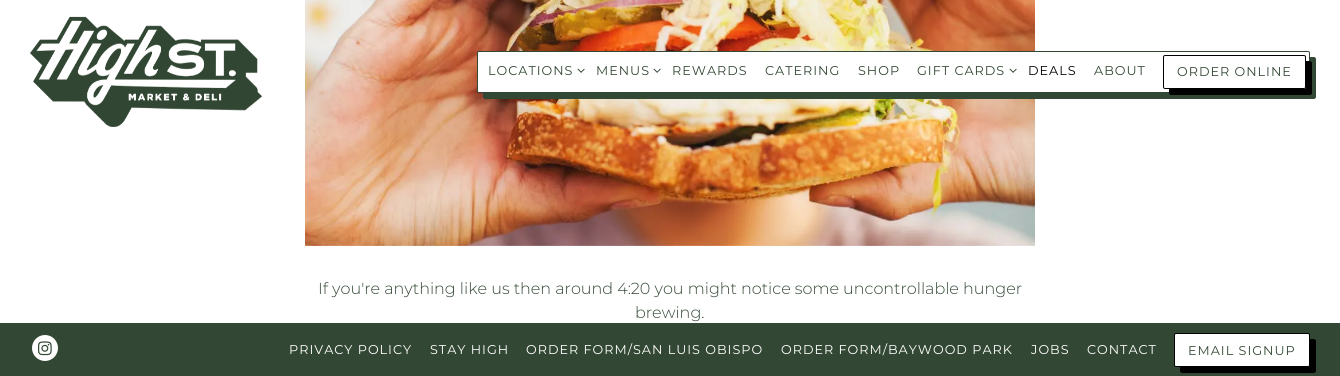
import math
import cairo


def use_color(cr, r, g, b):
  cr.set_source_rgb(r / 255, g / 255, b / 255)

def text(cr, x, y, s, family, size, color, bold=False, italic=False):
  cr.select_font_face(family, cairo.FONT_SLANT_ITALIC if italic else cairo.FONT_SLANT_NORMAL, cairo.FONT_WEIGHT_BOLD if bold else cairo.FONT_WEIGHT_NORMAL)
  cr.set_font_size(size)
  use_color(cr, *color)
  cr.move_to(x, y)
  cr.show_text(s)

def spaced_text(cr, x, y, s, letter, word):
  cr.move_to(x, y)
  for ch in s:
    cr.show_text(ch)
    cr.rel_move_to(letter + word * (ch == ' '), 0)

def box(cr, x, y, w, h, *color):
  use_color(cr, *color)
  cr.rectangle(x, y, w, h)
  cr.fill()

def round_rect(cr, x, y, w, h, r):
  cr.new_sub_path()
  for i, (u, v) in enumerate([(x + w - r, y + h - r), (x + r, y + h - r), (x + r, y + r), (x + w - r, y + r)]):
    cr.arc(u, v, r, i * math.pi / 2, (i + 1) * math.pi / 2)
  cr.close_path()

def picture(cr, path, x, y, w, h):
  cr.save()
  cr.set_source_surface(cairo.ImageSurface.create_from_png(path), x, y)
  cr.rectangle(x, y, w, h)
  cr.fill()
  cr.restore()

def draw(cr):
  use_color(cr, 255, 255, 255)
  cr.paint()
  picture(cr, "img_01.png", 30, 16, 232, 111)
  picture(cr, "img_03.png", 305, 0, 730, 246)
  use_color(cr, 51, 72, 52)
  cr.new_path()
  cr.move_to(483, 93)
  cr.line_to(483, 97)
  cr.curve_to(483, 98, 484, 99, 485, 99)
  cr.line_to(1314, 99)
  cr.curve_to(1315, 99, 1316, 98, 1316, 97)
  cr.line_to(1316, 59)
  cr.curve_to(1316, 58, 1315, 57, 1314, 57)
  cr.line_to(1310, 57)
  cr.line_to(1310, 91)
  cr.curve_to(1310, 92, 1309, 93, 1308, 93)
  cr.close_path()
  cr.fill()
  use_color(cr, 255, 255, 255)
  round_rect(cr, 477.5, 51.5, 832, 41, 1.5)
  cr.fill_preserve()
  use_color(cr, 51, 72, 52)
  cr.set_line_width(1)
  cr.stroke()
  picture(cr, "img_02.png", 577, 68, 8, 5)
  picture(cr, "img_02.png", 653, 68, 8, 5)
  picture(cr, "img_02.png", 1009, 68, 8, 5)
  use_color(cr, 0, 0, 0)
  cr.new_path()
  cr.move_to(1169, 89)
  cr.line_to(1169, 93)
  cr.curve_to(1169, 94, 1170, 95, 1171, 95)
  cr.line_to(1310, 95)
  cr.curve_to(1311, 95, 1312, 94, 1312, 93)
  cr.line_to(1312, 63)
  cr.curve_to(1312, 62, 1311, 61, 1310, 61)
  cr.line_to(1306, 61)
  cr.line_to(1306, 87)
  cr.curve_to(1306, 88, 1305, 89, 1304, 89)
  cr.close_path()
  cr.fill()
  use_color(cr, 255, 255, 255)
  round_rect(cr, 1163.5, 55.5, 142, 33, 1.5)
  cr.fill_preserve()
  use_color(cr, 0, 0, 0)
  cr.stroke()
  box(cr, 0, 323, 1340, 53, 51, 72, 52)
  use_color(cr, 255, 255, 255)
  cr.arc(45, 348, 13, 0, 2 * math.pi)
  cr.fill()
  picture(cr, "img_04.png", 38, 341, 14, 15)
  use_color(cr, 0, 0, 0)
  cr.new_path()
  cr.move_to(1180, 367)
  cr.line_to(1180, 371)
  cr.curve_to(1180, 372, 1181, 373, 1182, 373)
  cr.line_to(1314, 373)
  cr.curve_to(1315, 373, 1316, 372, 1316, 371)
  cr.line_to(1316, 341)
  cr.curve_to(1316, 340, 1315, 339, 1314, 339)
  cr.line_to(1310, 339)
  cr.line_to(1310, 365)
  cr.curve_to(1310, 366, 1309, 367, 1308, 367)
  cr.close_path()
  cr.fill()
  use_color(cr, 255, 255, 255)
  round_rect(cr, 1174.5, 333.5, 135, 33, 1.5)
  cr.fill_preserve()
  use_color(cr, 0, 0, 0)
  cr.stroke()
  cr.select_font_face("Montserrat")
  cr.set_font_size(12.75)
  use_color(cr, 51, 72, 52)
  spaced_text(cr, 488, 75, "LOCATIONS", 1, 0)
  spaced_text(cr, 596, 75, "MENUS", 1, 0)
  spaced_text(cr, 672, 75, "REWARDS", 1, 0)
  spaced_text(cr, 765, 75, "CATERING", 1, 0)
  spaced_text(cr, 858, 75, "SHOP", 1, 0)
  spaced_text(cr, 917, 75, "GIFT CARDS", 1, 0)
  use_color(cr, 0, 0, 0)
  spaced_text(cr, 1028, 75, "DEALS", 1, 0)
  use_color(cr, 51, 72, 52)
  spaced_text(cr, 1094, 75, "ABOUT", 1, 0)
  spaced_text(cr, 1177, 76, "ORDER ONLINE", 1, 0)
  text(cr, 318, 294, "If you're anything like us then around 4:20 you might notice some uncontrollable hunger", "Montserrat Light", 16, (51, 72, 52))
  text(cr, 635, 318, "brewing.", "Montserrat Light", 16, (51, 72, 52))
  cr.select_font_face("Montserrat")
  cr.set_font_size(12.75)
  use_color(cr, 255, 255, 255)
  spaced_text(cr, 289, 354, "PRIVACY POLICY", 1, 0)
  spaced_text(cr, 430, 354, "STAY HIGH", 1, 0)
  spaced_text(cr, 526, 354, "ORDER FORM/SAN LUIS OBISPO", 1, 0)
  spaced_text(cr, 781, 354, "ORDER FORM/BAYWOOD PARK", 1, 0)
  spaced_text(cr, 1031, 354, "JOBS", 1, 0)
  spaced_text(cr, 1087, 354, "CONTACT", 1, 0)
  use_color(cr, 51, 72, 52)
  spaced_text(cr, 1188, 355, "EMAIL SIGNUP", 1, 0)


surface = cairo.ImageSurface(cairo.FORMAT_RGB24, 1340, 376)
cr = cairo.Context(surface)
options = cairo.FontOptions()
options.set_hint_metrics(cairo.HINT_METRICS_OFF)
options.set_hint_style(cairo.HINT_STYLE_NONE)
cr.set_font_options(options)
cr.set_miter_limit(4)
draw(cr)
surface.write_to_png("out.png")
